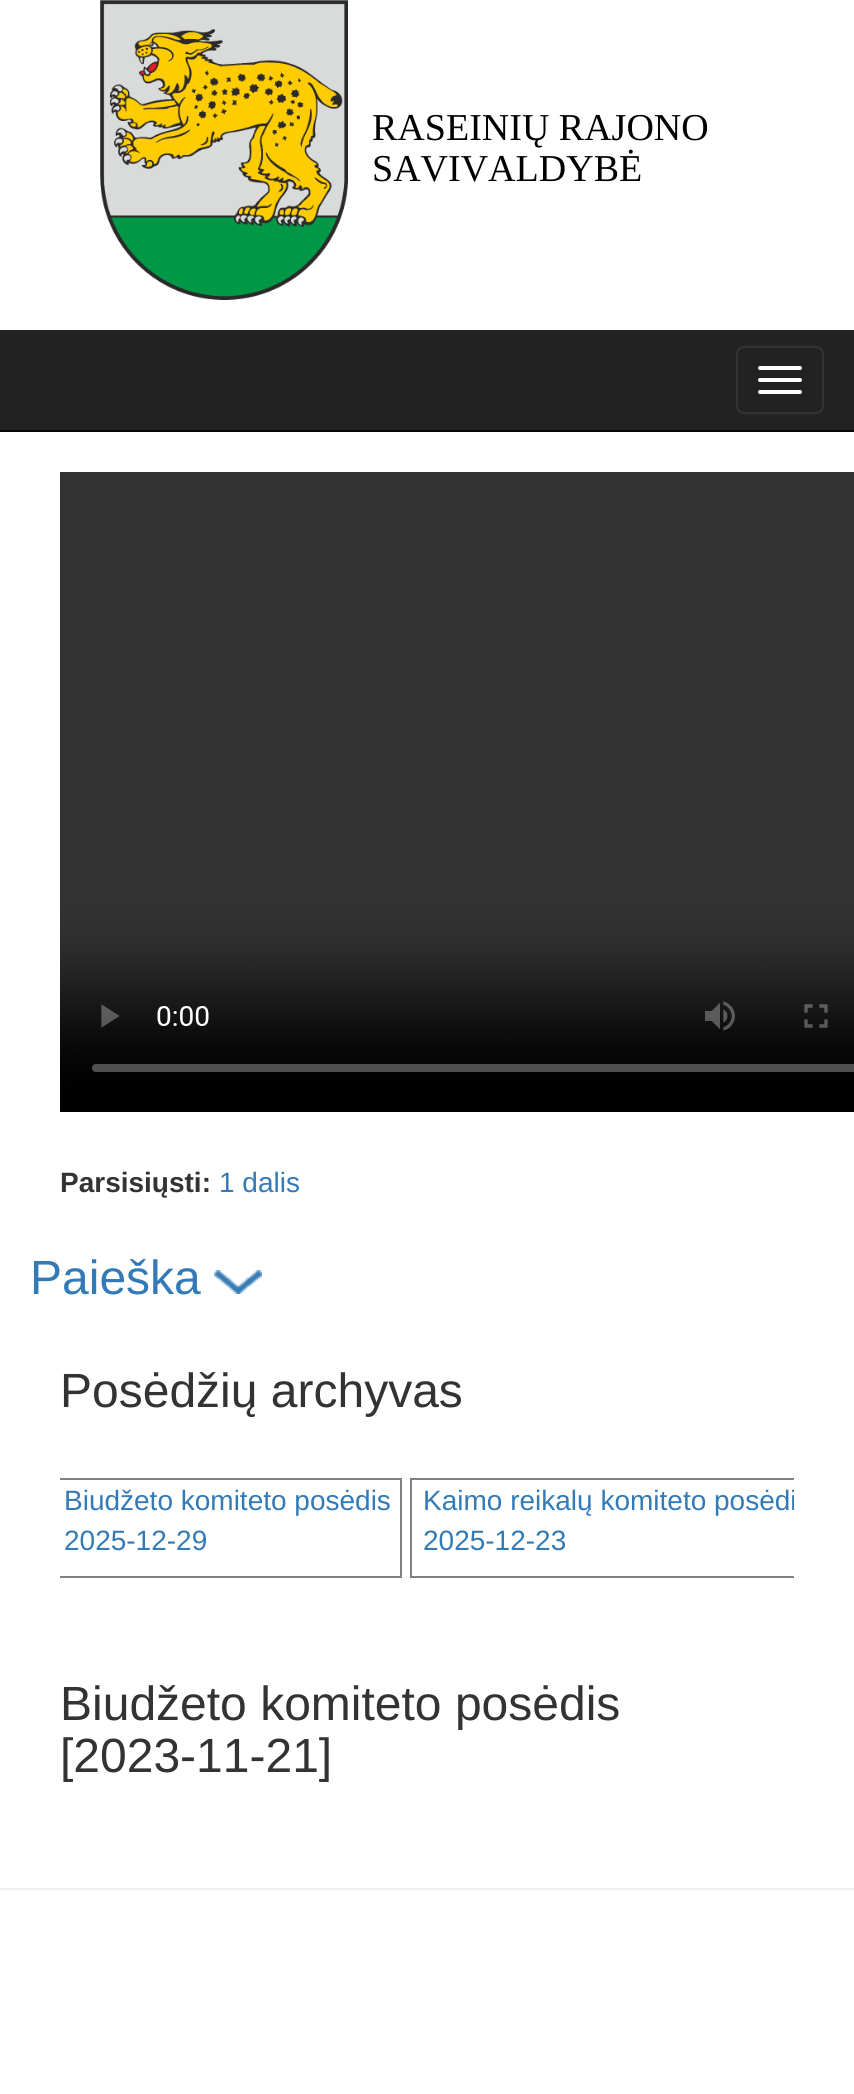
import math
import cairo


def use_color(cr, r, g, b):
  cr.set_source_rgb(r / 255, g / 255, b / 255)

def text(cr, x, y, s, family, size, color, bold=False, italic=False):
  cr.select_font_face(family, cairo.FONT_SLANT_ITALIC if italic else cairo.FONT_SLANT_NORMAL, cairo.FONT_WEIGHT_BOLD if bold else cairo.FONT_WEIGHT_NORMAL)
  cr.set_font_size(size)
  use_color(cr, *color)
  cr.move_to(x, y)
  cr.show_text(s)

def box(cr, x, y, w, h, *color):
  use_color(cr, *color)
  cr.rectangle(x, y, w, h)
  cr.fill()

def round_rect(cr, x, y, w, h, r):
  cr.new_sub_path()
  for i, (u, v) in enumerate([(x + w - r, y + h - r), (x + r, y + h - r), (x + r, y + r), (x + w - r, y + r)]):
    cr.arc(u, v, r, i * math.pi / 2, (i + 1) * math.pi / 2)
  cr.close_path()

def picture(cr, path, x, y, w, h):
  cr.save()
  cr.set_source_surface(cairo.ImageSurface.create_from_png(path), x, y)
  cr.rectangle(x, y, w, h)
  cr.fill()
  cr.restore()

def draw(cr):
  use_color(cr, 255, 255, 255)
  cr.paint()
  picture(cr, "img_01.png", 100, 0, 248, 300)
  box(cr, 0, 330, 854, 100, 34, 34, 34)
  box(cr, 0, 430, 854, 2, 8, 8, 8)
  round_rect(cr, 737, 347, 86, 66, 7)
  use_color(cr, 51, 51, 51)
  cr.stroke()
  use_color(cr, 255, 255, 255)
  round_rect(cr, 758, 366, 44, 4, 2)
  cr.fill()
  round_rect(cr, 758, 378, 44, 4, 2)
  cr.fill()
  round_rect(cr, 758, 390, 44, 4, 2)
  cr.fill()
  picture(cr, "img_02.png", 60, 472, 794, 640)
  picture(cr, "img_03.png", 214, 1270, 48, 24)
  cr.save()
  cr.rectangle(60, 1478, 734, 160)
  cr.clip()
  cr.rectangle(53, 1479, 348, 98)
  use_color(cr, 128, 128, 128)
  cr.stroke()
  cr.rectangle(411, 1479, 410, 98)
  cr.stroke()
  cr.restore()
  box(cr, 0, 1888, 854, 2, 238, 238, 238)
  text(cr, 372, 140, "RASEINIŲ RAJONO", "Liberation Serif", 38, (0, 0, 0))
  text(cr, 372, 181, "SAVIVALDYBĖ", "Liberation Serif", 38, (0, 0, 0))
  text(cr, 60, 1192, "Parsisiųsti:", "Liberation Sans", 28, (51, 51, 51), bold=True)
  text(cr, 219, 1192, "1 dalis", "Liberation Sans", 28, (51, 122, 183))
  text(cr, 30, 1294, "Paieška", "Liberation Sans", 48, (51, 122, 183))
  text(cr, 60, 1407, "Posėdžių archyvas", "Liberation Sans", 48, (51, 51, 51))
  text(cr, 64, 1510, "Biudžeto komiteto posėdis", "Liberation Sans", 28, (51, 122, 183))
  text(cr, 64, 1550, "2025-12-29", "Liberation Sans", 28, (51, 122, 183))
  cr.save()
  cr.rectangle(60, 1478, 734, 160)
  cr.clip()
  text(cr, 423, 1510, "Kaimo reikalų komiteto posėdi", "Liberation Sans", 28, (51, 122, 183))
  cr.restore()
  text(cr, 423, 1550, "2025-12-23", "Liberation Sans", 28, (51, 122, 183))
  text(cr, 60, 1720, "Biudžeto komiteto posėdis", "Liberation Sans", 48, (51, 51, 51))
  text(cr, 60, 1772, "[2023-11-21]", "Liberation Sans", 48, (51, 51, 51))


surface = cairo.ImageSurface(cairo.FORMAT_RGB24, 854, 2094)
cr = cairo.Context(surface)
options = cairo.FontOptions()
options.set_hint_metrics(cairo.HINT_METRICS_OFF)
options.set_hint_style(cairo.HINT_STYLE_NONE)
cr.set_font_options(options)
cr.set_miter_limit(4)
draw(cr)
surface.write_to_png("out.png")
